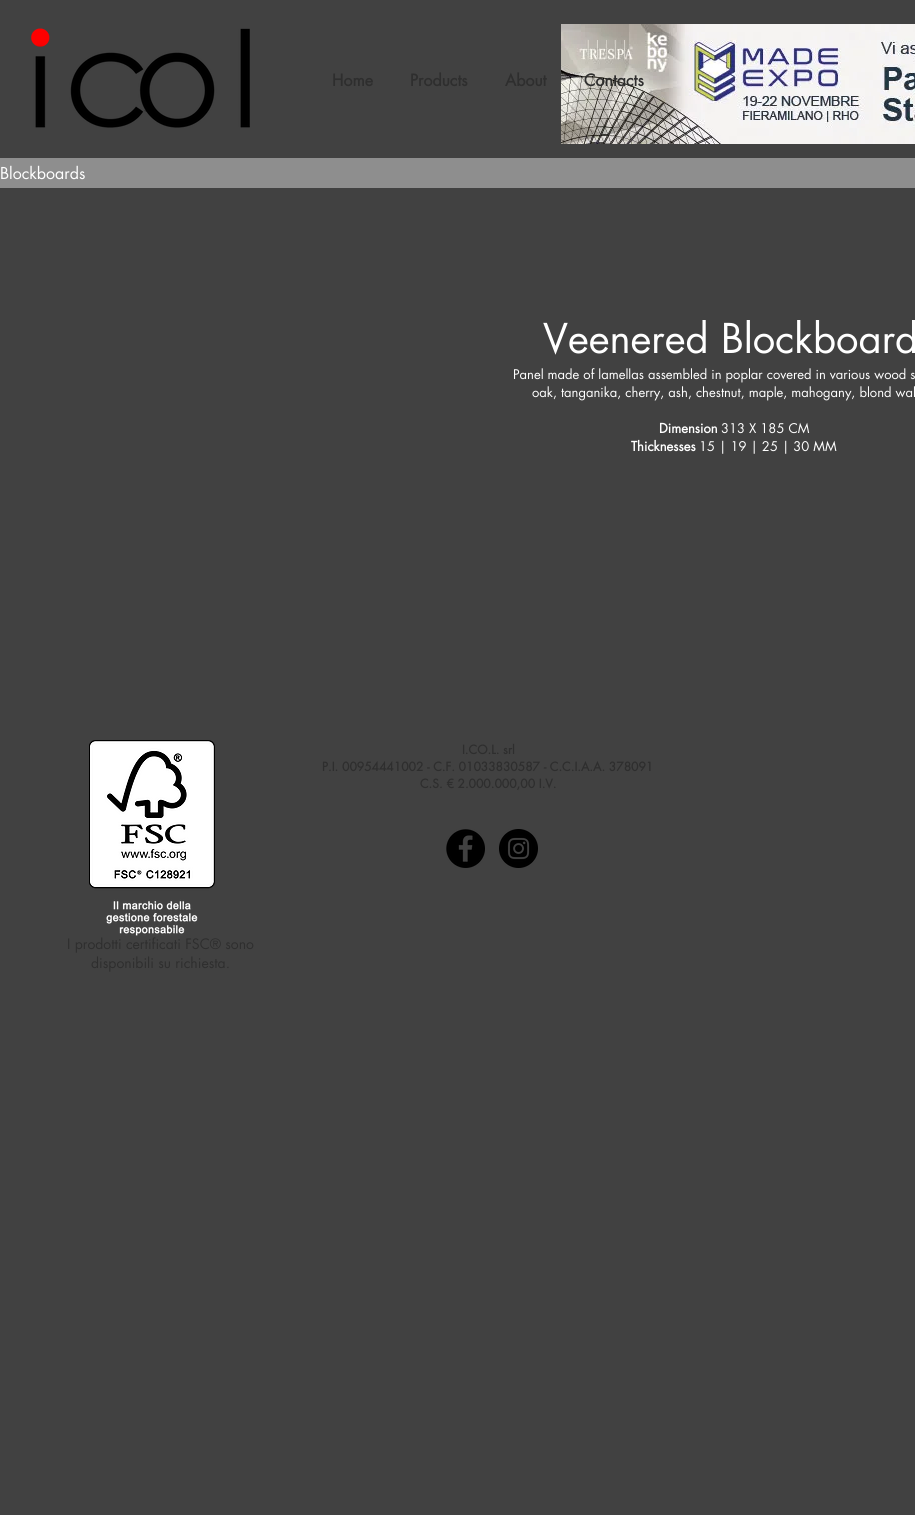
import math
import cairo


def use_color(cr, r, g, b):
  cr.set_source_rgb(r / 255, g / 255, b / 255)

def text(cr, x, y, s, family, size, color, bold=False, italic=False):
  cr.select_font_face(family, cairo.FONT_SLANT_ITALIC if italic else cairo.FONT_SLANT_NORMAL, cairo.FONT_WEIGHT_BOLD if bold else cairo.FONT_WEIGHT_NORMAL)
  cr.set_font_size(size)
  use_color(cr, *color)
  cr.move_to(x, y)
  cr.show_text(s)

def box(cr, x, y, w, h, *color):
  use_color(cr, *color)
  cr.rectangle(x, y, w, h)
  cr.fill()

def picture(cr, path, x, y, w, h):
  cr.save()
  cr.set_source_surface(cairo.ImageSurface.create_from_png(path), x, y)
  cr.rectangle(x, y, w, h)
  cr.fill()
  cr.restore()

def draw(cr):
  use_color(cr, 65, 65, 65)
  cr.paint()
  picture(cr, "img_01.png", 31, 28, 219, 100)
  picture(cr, "img_02.png", 561, 24, 354, 120)
  box(cr, 0, 158, 915, 30, 142, 142, 142)
  picture(cr, "img_03.png", 446, 829, 39, 39)
  picture(cr, "img_04.png", 499, 829, 39, 39)
  picture(cr, "img_05.png", 89, 740, 126, 196)
  text(cr, 332, 86, "Home", "futura", 16, (46, 46, 46), bold=True)
  text(cr, 410, 86, "Products", "futura", 16, (46, 46, 46), bold=True)
  text(cr, 505, 86, "About", "futura", 16, (46, 46, 46), bold=True)
  text(cr, 584, 86, "Contacts", "futura", 16, (46, 46, 46), bold=True)
  text(cr, 0, 179, "Blockboards", "futura", 16, (255, 255, 255))
  text(cr, 543, 353, "Veenered Blockboard", "futura", 40, (255, 255, 255))
  text(cr, 513, 379, "Panel made of lamellas assembled in poplar covered in various wood s", "futura", 13, (255, 255, 255))
  text(cr, 532, 397, "oak, tanganika, cherry, ash, chestnut, maple, mahogany, blond wal", "futura", 13, (255, 255, 255))
  text(cr, 659, 433, "Dimension", "futura", 13, (255, 255, 255), bold=True)
  text(cr, 721, 433, "313 X 185 CM", "futura", 13, (255, 255, 255))
  text(cr, 631, 451, "Thicknesses", "futura", 13, (255, 255, 255), bold=True)
  text(cr, 699, 451, "15 | 19 | 25 | 30 MM", "futura", 13, (255, 255, 255))
  text(cr, 462, 754, "I.CO.L. srl", "futura", 12, (46, 46, 46), bold=True)
  text(cr, 322, 771, "P.I. 00954441002 - C.F. 01033830587 - C.C.I.A.A. 378091", "futura", 12, (46, 46, 46), bold=True)
  text(cr, 420, 788, "C.S. € 2.000.000,00 I.V.", "futura", 12, (46, 46, 46), bold=True)
  text(cr, 67, 949, "I prodotti certificati FSC® sono", "futura", 14, (46, 46, 46))
  text(cr, 91, 968, "disponibili su richiesta.", "futura", 14, (46, 46, 46))


surface = cairo.ImageSurface(cairo.FORMAT_RGB24, 915, 1515)
cr = cairo.Context(surface)
options = cairo.FontOptions()
options.set_hint_metrics(cairo.HINT_METRICS_OFF)
options.set_hint_style(cairo.HINT_STYLE_NONE)
cr.set_font_options(options)
cr.set_miter_limit(4)
draw(cr)
surface.write_to_png("out.png")
